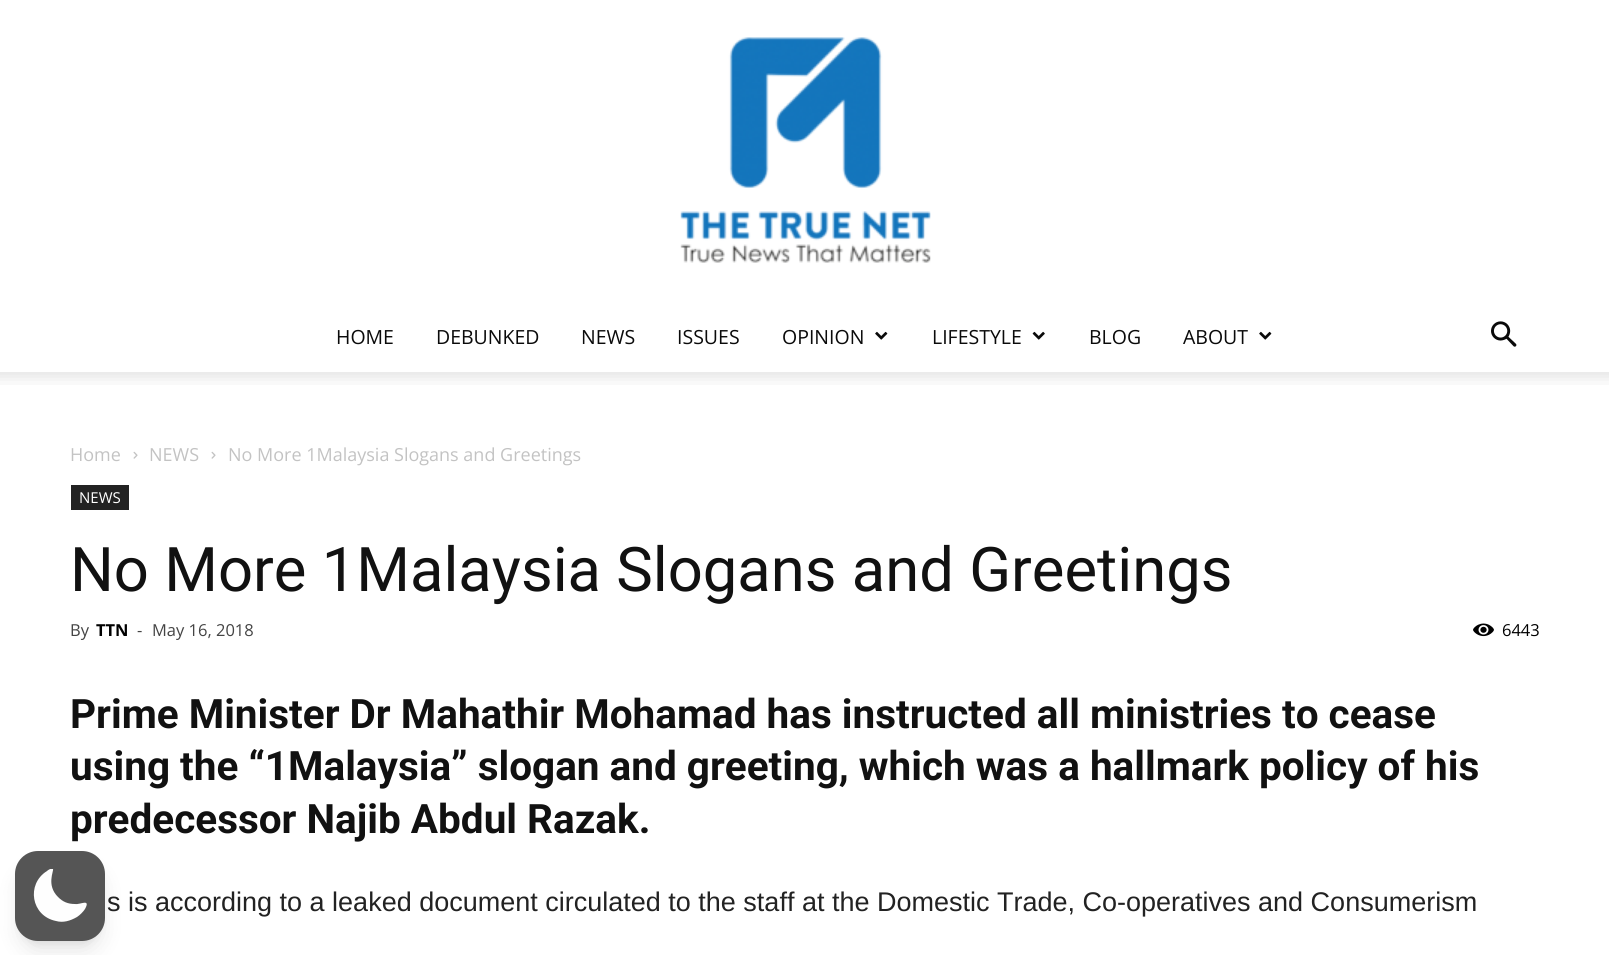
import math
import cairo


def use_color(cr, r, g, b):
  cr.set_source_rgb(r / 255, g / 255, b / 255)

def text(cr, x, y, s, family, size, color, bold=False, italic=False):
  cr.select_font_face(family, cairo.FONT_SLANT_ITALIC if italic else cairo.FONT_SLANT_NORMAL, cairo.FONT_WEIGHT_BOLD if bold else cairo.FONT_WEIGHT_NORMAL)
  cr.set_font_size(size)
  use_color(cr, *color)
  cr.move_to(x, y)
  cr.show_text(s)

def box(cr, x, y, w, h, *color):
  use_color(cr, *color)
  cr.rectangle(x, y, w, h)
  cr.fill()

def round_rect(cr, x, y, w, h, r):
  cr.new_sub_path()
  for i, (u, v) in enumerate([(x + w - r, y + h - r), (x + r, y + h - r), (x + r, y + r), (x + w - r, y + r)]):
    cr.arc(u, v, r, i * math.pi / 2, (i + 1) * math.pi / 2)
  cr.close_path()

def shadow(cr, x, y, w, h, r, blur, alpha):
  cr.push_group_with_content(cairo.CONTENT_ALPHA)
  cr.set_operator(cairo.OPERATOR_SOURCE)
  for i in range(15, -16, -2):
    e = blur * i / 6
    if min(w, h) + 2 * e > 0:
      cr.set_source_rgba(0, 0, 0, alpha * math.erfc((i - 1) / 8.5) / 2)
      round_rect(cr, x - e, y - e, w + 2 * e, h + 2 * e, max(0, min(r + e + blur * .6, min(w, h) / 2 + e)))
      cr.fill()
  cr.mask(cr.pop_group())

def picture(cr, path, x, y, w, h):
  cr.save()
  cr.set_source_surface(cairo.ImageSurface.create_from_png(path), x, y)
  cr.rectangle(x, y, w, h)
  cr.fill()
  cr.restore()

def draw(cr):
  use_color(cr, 255, 255, 255)
  cr.paint()
  use_color(cr, 0, 0, 0)
  shadow(cr, 21, 863, 78, 78, 17, 4.5, 0.1)
  shadow(cr, 20, 870, 81, 81, 18, 11, 0.1)
  use_color(cr, 85, 85, 85)
  round_rect(cr, 15, 851, 90, 90, 23)
  cr.fill()
  cr.save()
  cr.rectangle(33, 869, 54, 54)
  cr.clip()
  use_color(cr, 254, 254, 254)
  cr.set_fill_rule(cairo.FILL_RULE_EVEN_ODD)
  cr.new_path()
  cr.move_to(53, 869)
  cr.curve_to(54, 871, 46, 885, 58, 897)
  cr.curve_to(63, 902, 68, 904, 75, 904)
  cr.curve_to(80, 905, 91, 898, 85, 909)
  cr.curve_to(83, 912, 80, 915, 77, 917)
  cr.curve_to(70, 921, 63, 923, 56, 921)
  cr.curve_to(31, 916, 26, 884, 47, 871)
  cr.curve_to(48, 870, 51, 868, 53, 869)
  cr.close_path()
  cr.fill()
  cr.restore()
  picture(cr, "img_01.png", 680, 37, 251, 226)
  picture(cr, "img_02.png", 875, 331, 13, 9)
  picture(cr, "img_03.png", 1032, 331, 13, 9)
  picture(cr, "img_02.png", 1259, 331, 13, 9)
  picture(cr, "img_04.png", 1491, 321, 26, 26)
  picture(cr, "img_05.png", 0, 372, 1609, 13)
  picture(cr, "img_06.png", 133, 451, 5, 8)
  picture(cr, "img_06.png", 211, 451, 5, 8)
  box(cr, 71, 485, 58, 25, 34, 34, 34)
  picture(cr, "img_07.png", 1473, 623, 21, 14)
  text(cr, 336, 344, "HOME", "Open Sans", 19.5, (10, 10, 10))
  text(cr, 436, 344, "DEBUNKED", "Open Sans", 19.5, (10, 10, 10))
  text(cr, 581, 344, "NEWS", "Open Sans", 19.5, (10, 10, 10))
  text(cr, 677, 344, "ISSUES", "Open Sans", 19.5, (10, 10, 10))
  text(cr, 782, 344, "OPINION", "Open Sans", 19.5, (10, 10, 10))
  text(cr, 932, 344, "LIFESTYLE", "Open Sans", 19.5, (10, 10, 10))
  text(cr, 1089, 344, "BLOG", "Open Sans", 19.5, (10, 10, 10))
  text(cr, 1183, 344, "ABOUT", "Open Sans", 19.5, (10, 10, 10))
  text(cr, 70, 461, "Home", "Open Sans", 18, (195, 195, 195))
  text(cr, 149, 461, "NEWS", "Open Sans", 18, (195, 195, 195))
  text(cr, 228, 461, "No More 1Malaysia Slogans and Greetings", "Open Sans", 18, (195, 195, 195))
  text(cr, 79, 503, "NEWS", "Open Sans", 15, (255, 255, 255))
  text(cr, 70, 591, "No More 1Malaysia Slogans and Greetings", "Roboto", 61.5, (17, 17, 17))
  text(cr, 70, 636, "By", "Open Sans", 16.5, (68, 68, 68))
  text(cr, 96, 636, "TTN", "Open Sans", 16.5, (0, 0, 0), bold=True)
  text(cr, 137, 636, "-", "Open Sans", 16.5, (68, 68, 68))
  text(cr, 152, 636, "May 16, 2018", "Open Sans", 16.5, (68, 68, 68))
  text(cr, 1502, 636, "6443", "Open Sans", 16.5, (0, 0, 0))
  text(cr, 70, 728, "Prime Minister Dr Mahathir Mohamad has instructed all ministries to cease", "Roboto", 40.5, (17, 17, 17), bold=True)
  text(cr, 70, 780, "using the “1Malaysia” slogan and greeting, which was a hallmark policy of his", "Roboto", 40.5, (17, 17, 17), bold=True)
  text(cr, 70, 833, "predecessor Najib Abdul Razak.", "Roboto", 40.5, (17, 17, 17), bold=True)
  text(cr, 107, 911, "s is according to a leaked document circulated to the staff at the Domestic Trade, Co-operatives and Consumerism", "Liberation Sans", 27, (34, 34, 34))


surface = cairo.ImageSurface(cairo.FORMAT_RGB24, 1609, 955)
cr = cairo.Context(surface)
options = cairo.FontOptions()
options.set_hint_metrics(cairo.HINT_METRICS_OFF)
options.set_hint_style(cairo.HINT_STYLE_NONE)
cr.set_font_options(options)
cr.set_miter_limit(4)
draw(cr)
surface.write_to_png("out.png")
